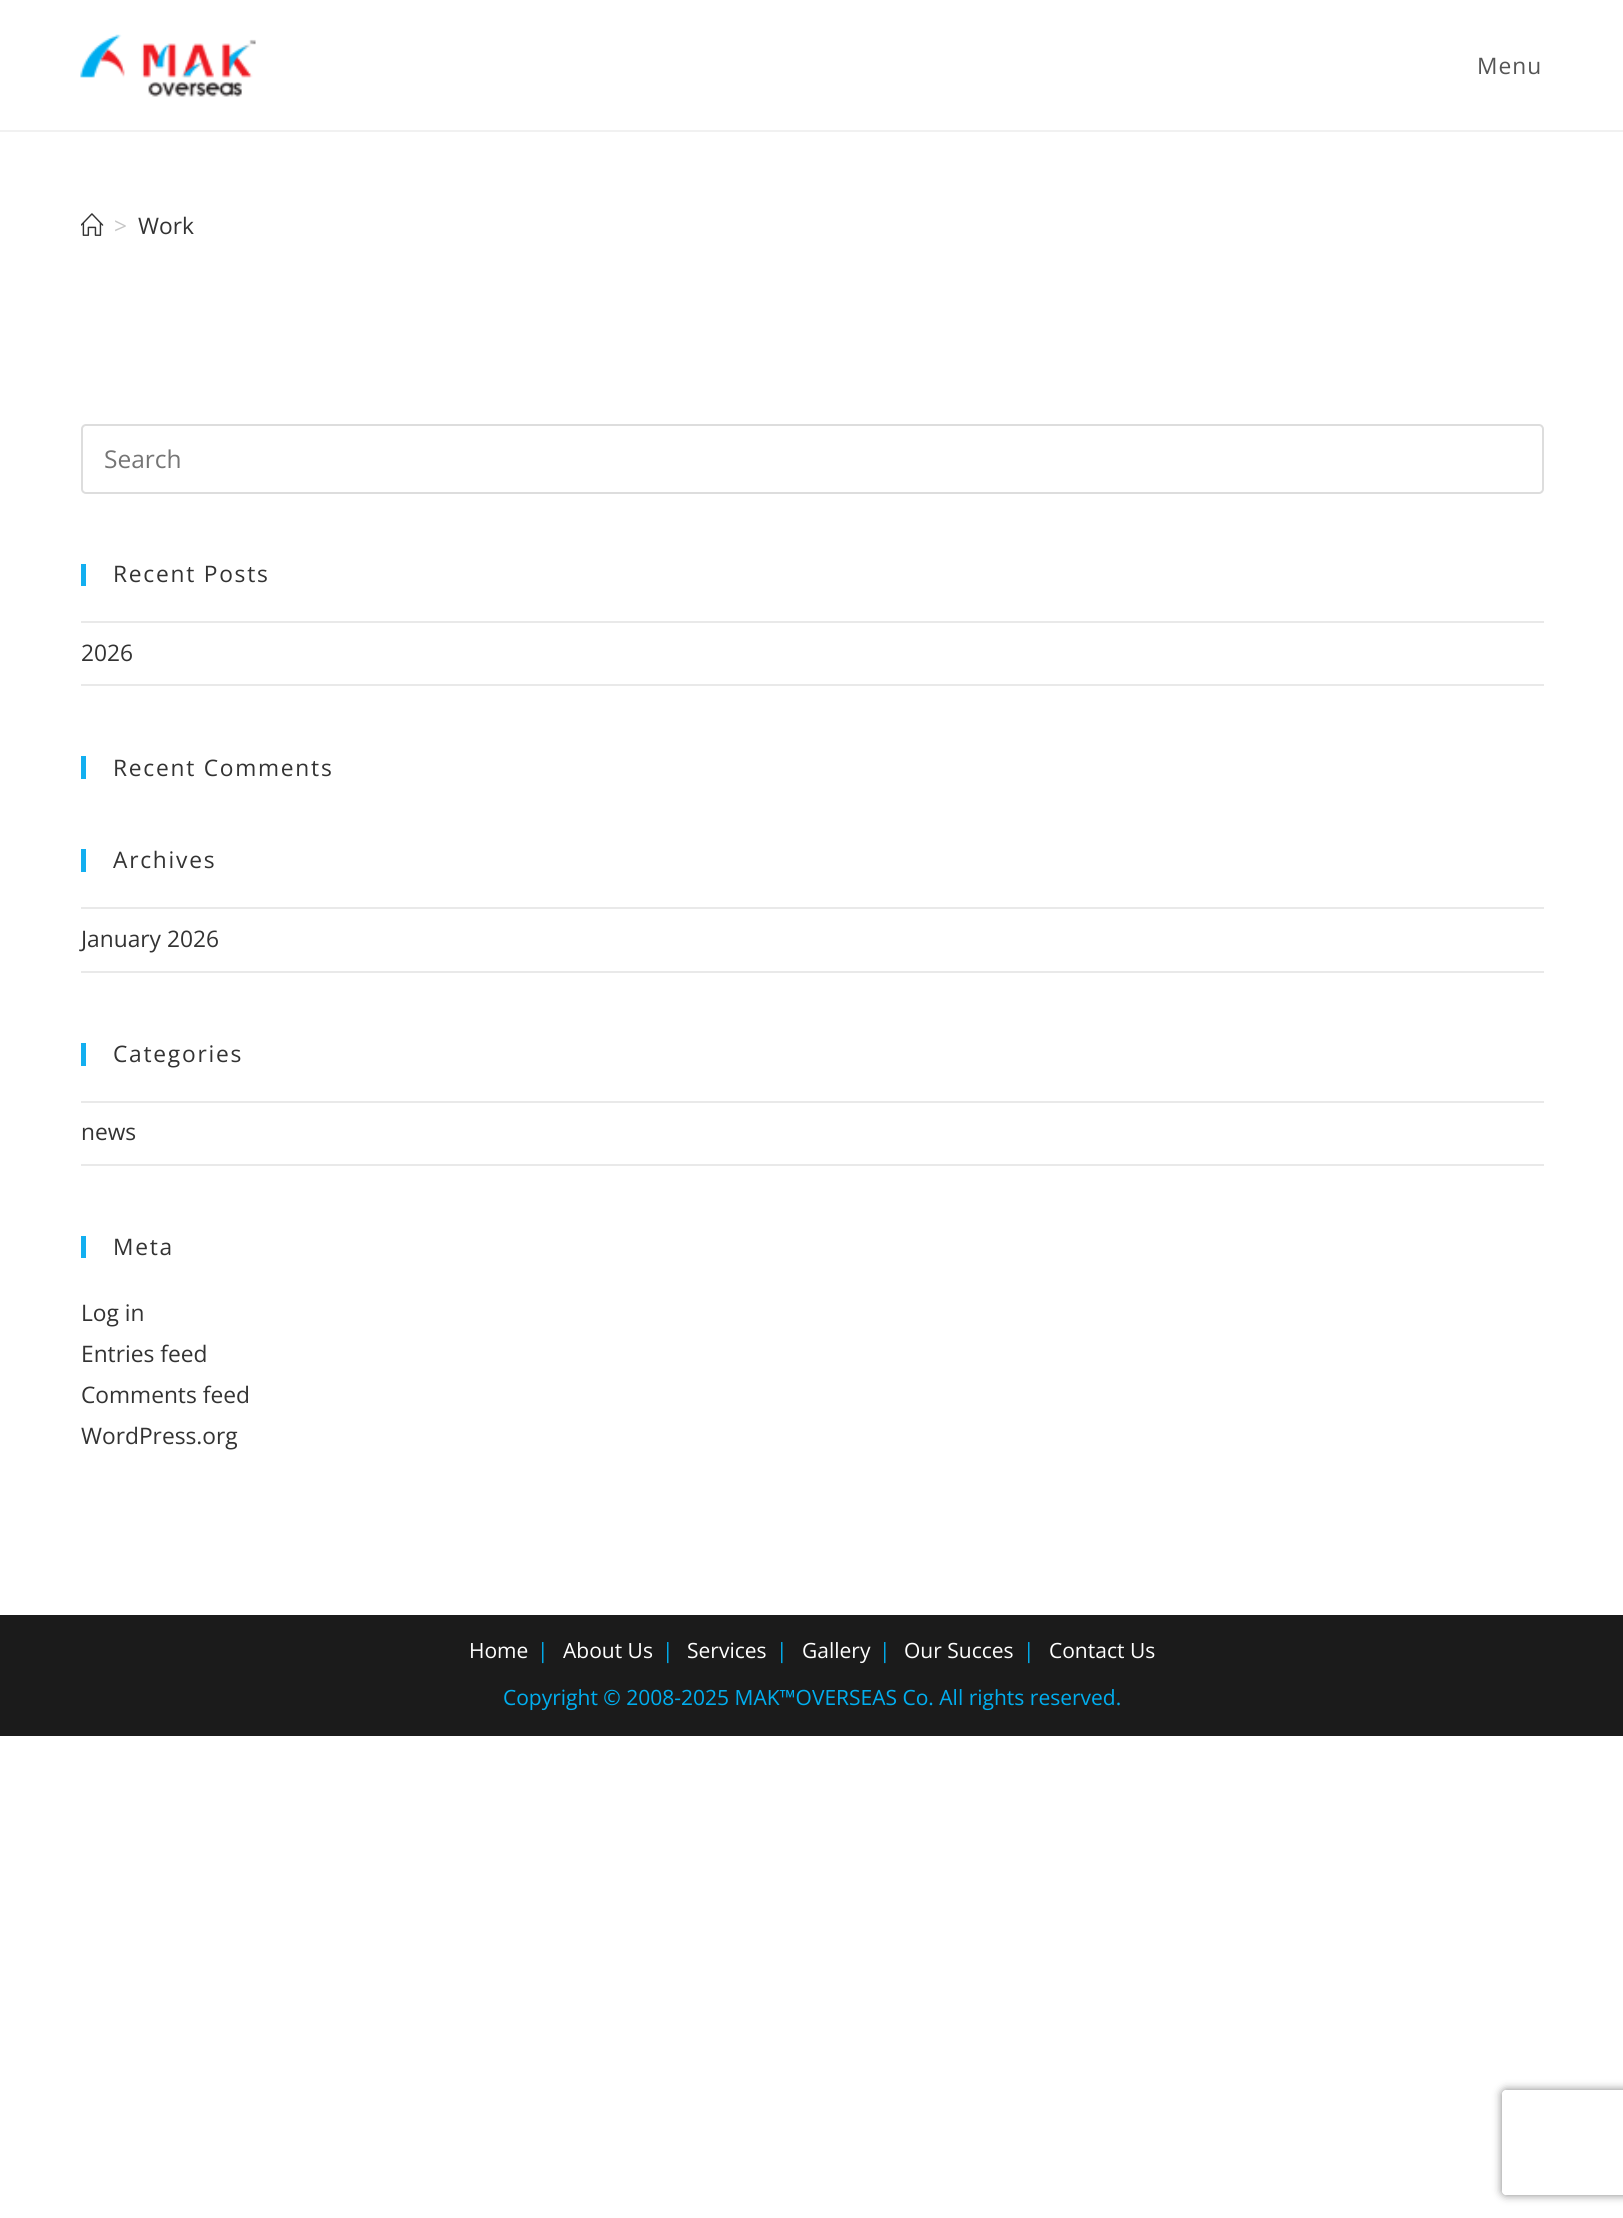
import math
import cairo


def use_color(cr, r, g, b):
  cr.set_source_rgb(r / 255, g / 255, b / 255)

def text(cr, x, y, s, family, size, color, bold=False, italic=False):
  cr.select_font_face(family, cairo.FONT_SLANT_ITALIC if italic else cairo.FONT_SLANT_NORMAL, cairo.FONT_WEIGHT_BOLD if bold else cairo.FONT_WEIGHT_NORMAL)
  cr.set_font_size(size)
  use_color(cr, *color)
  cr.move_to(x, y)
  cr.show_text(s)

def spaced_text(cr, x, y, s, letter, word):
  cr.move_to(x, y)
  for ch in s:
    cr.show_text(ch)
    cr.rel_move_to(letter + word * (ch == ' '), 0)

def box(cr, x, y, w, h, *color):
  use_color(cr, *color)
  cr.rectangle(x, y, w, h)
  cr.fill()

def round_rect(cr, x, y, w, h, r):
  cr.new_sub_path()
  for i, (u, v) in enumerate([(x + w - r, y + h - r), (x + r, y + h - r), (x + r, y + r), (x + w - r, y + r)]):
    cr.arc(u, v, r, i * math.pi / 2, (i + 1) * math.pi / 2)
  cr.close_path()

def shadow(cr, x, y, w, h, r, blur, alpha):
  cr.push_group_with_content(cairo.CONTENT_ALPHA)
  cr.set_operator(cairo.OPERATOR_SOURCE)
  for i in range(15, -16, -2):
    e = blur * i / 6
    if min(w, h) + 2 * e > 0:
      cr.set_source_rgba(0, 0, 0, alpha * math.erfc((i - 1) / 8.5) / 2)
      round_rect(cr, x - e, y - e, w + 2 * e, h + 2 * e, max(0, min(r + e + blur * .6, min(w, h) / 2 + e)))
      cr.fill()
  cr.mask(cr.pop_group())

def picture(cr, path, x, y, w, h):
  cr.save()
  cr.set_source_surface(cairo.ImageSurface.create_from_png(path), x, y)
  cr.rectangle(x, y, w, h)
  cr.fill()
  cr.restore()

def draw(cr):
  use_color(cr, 255, 255, 255)
  cr.paint()
  box(cr, 0, 130, 1623, 2, 241, 241, 241)
  picture(cr, "img_01.png", 80, 34, 176, 63)
  picture(cr, "img_02.png", 81, 213, 23, 23)
  round_rect(cr, 82, 425, 1461, 68, 4)
  use_color(cr, 221, 221, 221)
  cr.stroke()
  box(cr, 81, 564, 5, 22, 19, 175, 240)
  box(cr, 81, 621, 1463, 2, 233, 233, 233)
  box(cr, 81, 684, 1463, 2, 233, 233, 233)
  box(cr, 81, 756, 5, 23, 19, 175, 240)
  box(cr, 81, 849, 5, 23, 19, 175, 240)
  box(cr, 81, 907, 1463, 2, 233, 233, 233)
  box(cr, 81, 971, 1463, 2, 233, 233, 233)
  box(cr, 81, 1043, 5, 23, 19, 175, 240)
  box(cr, 81, 1101, 1463, 2, 233, 233, 233)
  box(cr, 81, 1164, 1463, 2, 233, 233, 233)
  box(cr, 81, 1236, 5, 22, 19, 175, 240)
  box(cr, 0, 1615, 1623, 121, 27, 27, 27)
  cr.save()
  cr.set_fill_rule(cairo.FILL_RULE_EVEN_ODD)
  cr.new_path()
  cr.move_to(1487, 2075)
  cr.line_to(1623, 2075)
  cr.line_to(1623, 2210)
  cr.line_to(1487, 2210)
  cr.close_path()
  cr.move_to(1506, 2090)
  cr.line_to(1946, 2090)
  cr.curve_to(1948, 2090, 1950, 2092, 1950, 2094)
  cr.line_to(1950, 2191)
  cr.curve_to(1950, 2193, 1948, 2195, 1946, 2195)
  cr.line_to(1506, 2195)
  cr.curve_to(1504, 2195, 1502, 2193, 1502, 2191)
  cr.line_to(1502, 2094)
  cr.curve_to(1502, 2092, 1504, 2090, 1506, 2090)
  cr.close_path()
  cr.clip()
  use_color(cr, 128, 128, 128)
  shadow(cr, 1502, 2090, 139, 105, 4, 4.5, 1)
  cr.restore()
  cr.select_font_face("Open Sans")
  cr.set_font_size(22.75)
  use_color(cr, 85, 85, 85)
  spaced_text(cr, 1477, 74, "Menu", 1, 0)
  text(cr, 114, 234, ">", "Open Sans", 22.75, (198, 198, 198))
  text(cr, 138, 234, "Work", "Open Sans", 22.75, (51, 51, 51))
  text(cr, 104, 468, "Search", "Open Sans", 24.5, (117, 117, 117))
  cr.set_font_size(22.75)
  use_color(cr, 51, 51, 51)
  spaced_text(cr, 113, 582, "Recent Posts", 1.75, 0)
  text(cr, 81, 661, "2026", "Open Sans", 22.75, (51, 51, 51))
  spaced_text(cr, 113, 776, "Recent Comments", 1.75, 0)
  spaced_text(cr, 113, 868, "Archives", 1.75, 0)
  text(cr, 81, 947, "January 2026", "Open Sans", 22.75, (51, 51, 51))
  spaced_text(cr, 113, 1062, "Categories", 1.75, 0)
  text(cr, 81, 1140, "news", "Open Sans", 22.75, (51, 51, 51))
  spaced_text(cr, 113, 1255, "Meta", 1.75, 0)
  text(cr, 81, 1321, "Log in", "Open Sans", 22.75, (51, 51, 51))
  text(cr, 81, 1362, "Entries feed", "Open Sans", 22.75, (51, 51, 51))
  text(cr, 81, 1403, "Comments feed", "Open Sans", 22.75, (51, 51, 51))
  text(cr, 81, 1444, "WordPress.org", "Open Sans", 22.75, (51, 51, 51))
  text(cr, 469, 1658, "Home", "Open Sans", 21, (255, 255, 255))
  text(cr, 537, 1658, "|", "Open Sans", 21, (0, 174, 239))
  text(cr, 563, 1658, "About Us", "Open Sans", 21, (255, 255, 255))
  text(cr, 662, 1658, "|", "Open Sans", 21, (0, 174, 239))
  text(cr, 687, 1658, "Services", "Open Sans", 21, (255, 255, 255))
  text(cr, 776, 1658, "|", "Open Sans", 21, (0, 174, 239))
  text(cr, 802, 1658, "Gallery", "Open Sans", 21, (255, 255, 255))
  text(cr, 879, 1658, "|", "Open Sans", 21, (0, 174, 239))
  text(cr, 904, 1658, "Our Succes", "Open Sans", 21, (255, 255, 255))
  text(cr, 1023, 1658, "|", "Open Sans", 21, (0, 174, 239))
  text(cr, 1049, 1658, "Contact Us", "Open Sans", 21, (255, 255, 255))
  text(cr, 503, 1705, "Copyright © 2008-2025 MAK™OVERSEAS Co. All rights reserved.", "Open Sans", 21, (0, 174, 239))


surface = cairo.ImageSurface(cairo.FORMAT_RGB24, 1623, 2218)
cr = cairo.Context(surface)
options = cairo.FontOptions()
options.set_hint_metrics(cairo.HINT_METRICS_OFF)
options.set_hint_style(cairo.HINT_STYLE_NONE)
cr.set_font_options(options)
cr.set_miter_limit(4)
draw(cr)
surface.write_to_png("out.png")
